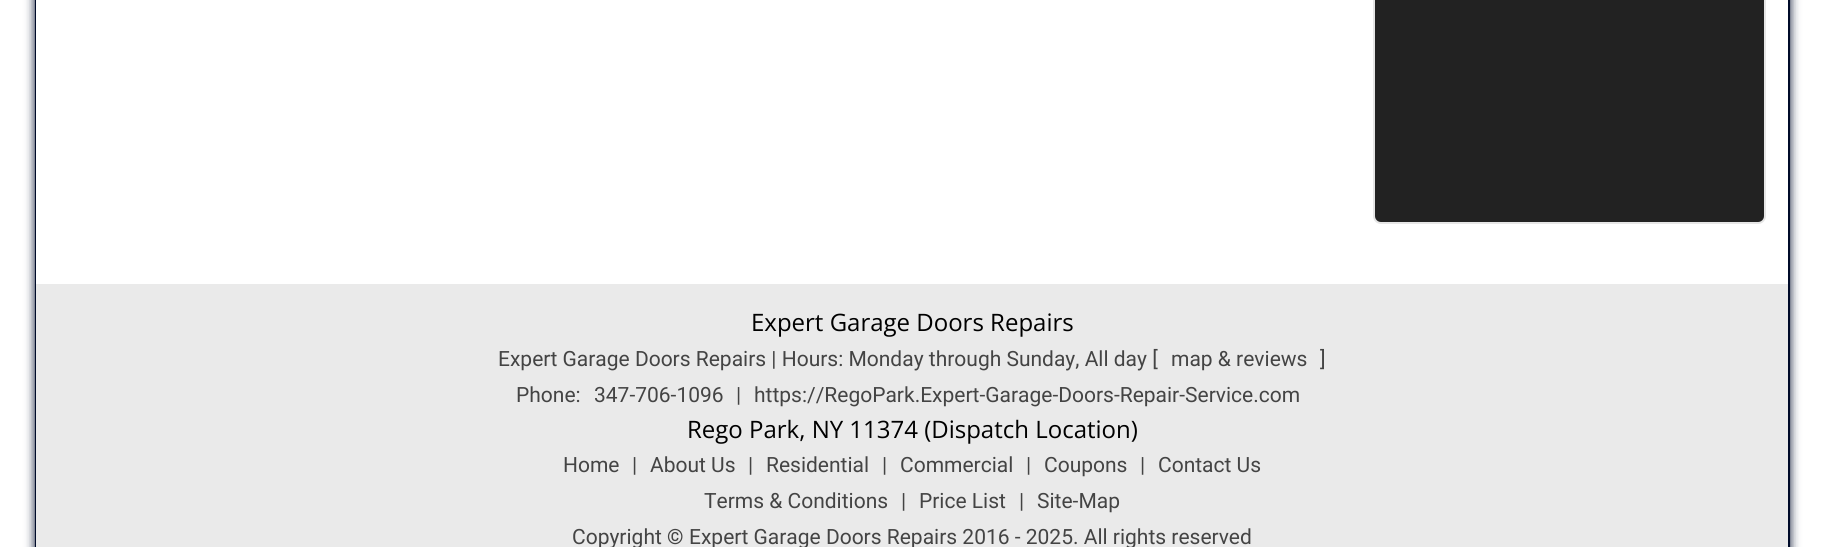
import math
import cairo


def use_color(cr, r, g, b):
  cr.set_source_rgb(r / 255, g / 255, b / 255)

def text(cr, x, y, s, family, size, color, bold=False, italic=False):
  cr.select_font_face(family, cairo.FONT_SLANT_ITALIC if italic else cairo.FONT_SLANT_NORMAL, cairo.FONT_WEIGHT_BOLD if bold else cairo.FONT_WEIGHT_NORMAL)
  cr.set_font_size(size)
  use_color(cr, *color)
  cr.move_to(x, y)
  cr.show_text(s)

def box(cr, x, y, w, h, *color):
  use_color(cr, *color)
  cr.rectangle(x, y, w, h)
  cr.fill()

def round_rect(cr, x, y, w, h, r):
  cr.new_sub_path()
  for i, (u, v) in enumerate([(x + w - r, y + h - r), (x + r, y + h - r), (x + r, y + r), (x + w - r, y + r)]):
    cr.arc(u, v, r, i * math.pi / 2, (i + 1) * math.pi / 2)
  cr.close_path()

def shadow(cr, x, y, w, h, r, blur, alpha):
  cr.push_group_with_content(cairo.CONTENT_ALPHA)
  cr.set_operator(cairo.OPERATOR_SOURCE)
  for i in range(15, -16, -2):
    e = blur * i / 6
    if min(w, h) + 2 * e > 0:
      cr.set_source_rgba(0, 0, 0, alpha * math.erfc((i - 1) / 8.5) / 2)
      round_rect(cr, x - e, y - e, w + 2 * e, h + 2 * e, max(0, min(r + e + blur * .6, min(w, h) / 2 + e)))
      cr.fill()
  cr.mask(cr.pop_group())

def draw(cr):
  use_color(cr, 255, 255, 255)
  cr.paint()
  use_color(cr, 0, 11, 41)
  shadow(cr, 35, -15, 1755, 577, 0, 5, 1)
  cr.rectangle(36, -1, 1753, 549)
  use_color(cr, 0, 11, 41)
  cr.stroke()
  box(cr, 36, 0, 1752, 284, 255, 255, 255)
  use_color(cr, 34, 34, 34)
  round_rect(cr, 1374, -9, 391, 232, 7)
  cr.fill_preserve()
  use_color(cr, 230, 230, 230)
  cr.stroke()
  box(cr, 36, 284, 1752, 263, 234, 234, 234)
  text(cr, 751, 331, "Expert Garage Doors Repairs", "Open Sans", 24, (0, 0, 0))
  text(cr, 498, 366, "Expert Garage Doors Repairs | Hours: Monday through Sunday, All day [", "Roboto", 21, (68, 68, 68))
  text(cr, 1171, 366, "map & reviews", "Roboto", 21, (68, 68, 68))
  text(cr, 1320, 366, "]", "Roboto", 21, (68, 68, 68))
  text(cr, 516, 402, "Phone:", "Roboto", 21, (68, 68, 68))
  text(cr, 594, 402, "347-706-1096", "Roboto", 21, (68, 68, 68))
  text(cr, 736, 402, "|", "Roboto", 21, (68, 68, 68))
  text(cr, 754, 402, "https://RegoPark.Expert-Garage-Doors-Repair-Service.com", "Roboto", 21, (68, 68, 68))
  text(cr, 687, 438, "Rego Park, NY 11374 (Dispatch Location)", "Open Sans", 24, (0, 0, 0))
  text(cr, 563, 472, "Home", "Roboto", 21, (68, 68, 68))
  text(cr, 632, 472, "|", "Roboto", 21, (68, 68, 68))
  text(cr, 650, 472, "About Us", "Roboto", 21, (68, 68, 68))
  text(cr, 748, 472, "|", "Roboto", 21, (68, 68, 68))
  text(cr, 766, 472, "Residential", "Roboto", 21, (68, 68, 68))
  text(cr, 882, 472, "|", "Roboto", 21, (68, 68, 68))
  text(cr, 900, 472, "Commercial", "Roboto", 21, (68, 68, 68))
  text(cr, 1026, 472, "|", "Roboto", 21, (68, 68, 68))
  text(cr, 1044, 472, "Coupons", "Roboto", 21, (68, 68, 68))
  text(cr, 1140, 472, "|", "Roboto", 21, (68, 68, 68))
  text(cr, 1158, 472, "Contact Us", "Roboto", 21, (68, 68, 68))
  text(cr, 704, 508, "Terms & Conditions", "Roboto", 21, (68, 68, 68))
  text(cr, 901, 508, "|", "Roboto", 21, (68, 68, 68))
  text(cr, 919, 508, "Price List", "Roboto", 21, (68, 68, 68))
  text(cr, 1019, 508, "|", "Roboto", 21, (68, 68, 68))
  text(cr, 1037, 508, "Site-Map", "Roboto", 21, (68, 68, 68))
  text(cr, 572, 544, "Copyright", "Roboto", 21, (68, 68, 68))
  text(cr, 667, 544, "©", "Roboto", 21, (68, 68, 68), bold=True)
  text(cr, 689, 544, "Expert Garage Doors Repairs 2016 - 2025. All rights reserved", "Roboto", 21, (68, 68, 68))


surface = cairo.ImageSurface(cairo.FORMAT_RGB24, 1824, 547)
cr = cairo.Context(surface)
options = cairo.FontOptions()
options.set_hint_metrics(cairo.HINT_METRICS_OFF)
options.set_hint_style(cairo.HINT_STYLE_NONE)
cr.set_font_options(options)
cr.set_miter_limit(4)
draw(cr)
surface.write_to_png("out.png")
